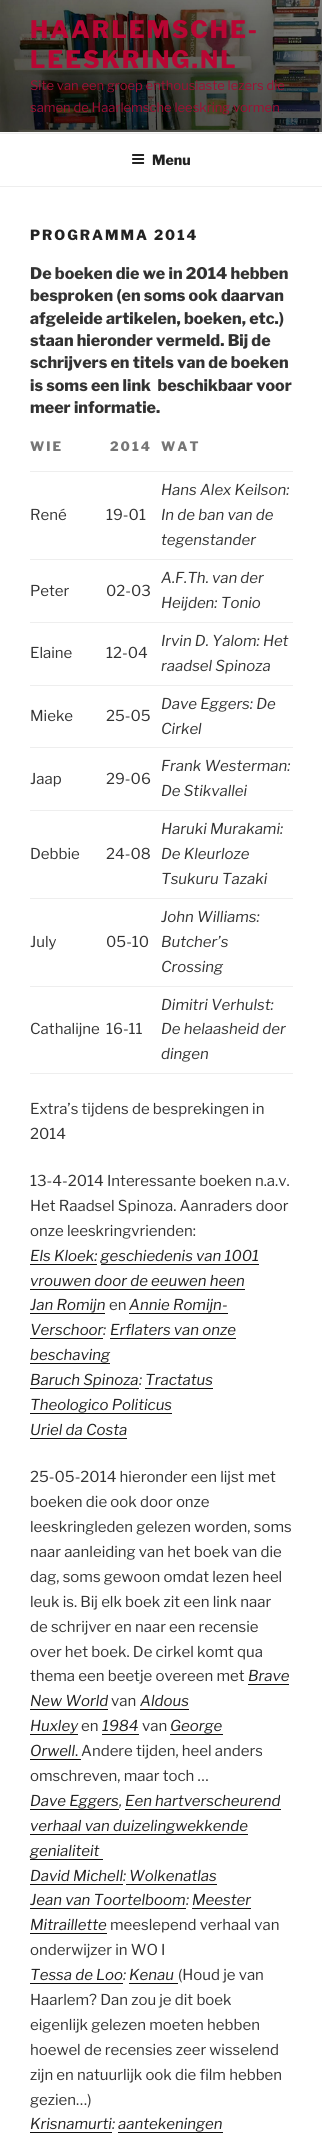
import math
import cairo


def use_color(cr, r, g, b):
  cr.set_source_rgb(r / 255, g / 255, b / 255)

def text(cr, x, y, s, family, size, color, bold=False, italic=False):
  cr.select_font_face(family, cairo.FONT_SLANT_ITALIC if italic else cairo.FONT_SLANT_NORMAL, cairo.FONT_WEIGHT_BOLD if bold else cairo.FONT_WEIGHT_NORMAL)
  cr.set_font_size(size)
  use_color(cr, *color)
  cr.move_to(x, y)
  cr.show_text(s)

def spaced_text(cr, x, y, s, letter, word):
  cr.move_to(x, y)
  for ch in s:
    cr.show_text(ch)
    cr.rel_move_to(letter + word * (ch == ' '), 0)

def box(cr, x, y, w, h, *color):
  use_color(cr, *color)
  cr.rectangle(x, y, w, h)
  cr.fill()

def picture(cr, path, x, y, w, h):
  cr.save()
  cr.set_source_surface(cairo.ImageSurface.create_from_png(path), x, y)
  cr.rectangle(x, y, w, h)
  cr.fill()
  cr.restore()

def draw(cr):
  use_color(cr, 255, 255, 255)
  cr.paint()
  box(cr, 0, 132, 322, 1, 250, 250, 250)
  picture(cr, "img_01.png", 0, 0, 322, 132)
  box(cr, 0, 133, 322, 1, 238, 238, 238)
  box(cr, 0, 186, 322, 1, 238, 238, 238)
  picture(cr, "img_02.png", 132, 154, 13, 10)
  box(cr, 30, 471, 263, 1, 238, 238, 238)
  box(cr, 30, 559, 263, 1, 238, 238, 238)
  box(cr, 30, 622, 263, 1, 238, 238, 238)
  box(cr, 30, 685, 263, 1, 238, 238, 238)
  box(cr, 30, 747, 263, 1, 238, 238, 238)
  box(cr, 30, 810, 263, 1, 238, 238, 238)
  box(cr, 30, 898, 263, 1, 238, 238, 238)
  box(cr, 30, 986, 263, 1, 238, 238, 238)
  box(cr, 30, 1073, 263, 1, 238, 238, 238)
  box(cr, 30, 1264, 67, 1, 15, 15, 15)
  box(cr, 101, 1264, 158, 1, 15, 15, 15)
  box(cr, 30, 1289, 215, 1, 15, 15, 15)
  box(cr, 30, 1313, 75, 1, 15, 15, 15)
  box(cr, 129, 1313, 99, 1, 15, 15, 15)
  box(cr, 30, 1338, 73, 1, 15, 15, 15)
  box(cr, 110, 1338, 126, 1, 15, 15, 15)
  box(cr, 30, 1363, 80, 1, 15, 15, 15)
  box(cr, 30, 1388, 109, 1, 15, 15, 15)
  box(cr, 145, 1388, 68, 1, 15, 15, 15)
  box(cr, 30, 1413, 142, 1, 15, 15, 15)
  box(cr, 30, 1438, 97, 1, 15, 15, 15)
  box(cr, 248, 1684, 41, 1, 15, 15, 15)
  box(cr, 30, 1709, 78, 1, 15, 15, 15)
  box(cr, 140, 1709, 49, 1, 15, 15, 15)
  box(cr, 30, 1734, 48, 1, 15, 15, 15)
  box(cr, 102, 1734, 37, 1, 15, 15, 15)
  box(cr, 170, 1734, 53, 1, 15, 15, 15)
  box(cr, 30, 1759, 51, 1, 15, 15, 15)
  box(cr, 30, 1809, 89, 1, 15, 15, 15)
  box(cr, 125, 1809, 156, 1, 15, 15, 15)
  box(cr, 30, 1834, 218, 1, 15, 15, 15)
  box(cr, 30, 1859, 73, 1, 15, 15, 15)
  box(cr, 30, 1884, 93, 1, 15, 15, 15)
  box(cr, 126, 1884, 91, 1, 15, 15, 15)
  box(cr, 30, 1908, 156, 1, 15, 15, 15)
  box(cr, 192, 1908, 59, 1, 15, 15, 15)
  box(cr, 30, 1933, 77, 1, 15, 15, 15)
  box(cr, 30, 1983, 93, 1, 15, 15, 15)
  box(cr, 129, 1983, 49, 1, 15, 15, 15)
  box(cr, 30, 2132, 82, 1, 15, 15, 15)
  box(cr, 118, 2132, 105, 1, 15, 15, 15)
  cr.select_font_face("Libre Franklin Thin")
  cr.set_font_size(24)
  use_color(cr, 184, 6, 51)
  spaced_text(cr, 30, 38, "HAARLEMSCHE-", 2, 0)
  spaced_text(cr, 30, 68, "LEESKRING.NL", 2, 0)
  text(cr, 30, 90, "Site van een groep enthousiaste lezers die", "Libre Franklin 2 Thin", 13, (157, 15, 50))
  text(cr, 30, 112, "samen de Haarlemsche leeskring vormen", "Libre Franklin 2 Thin", 13, (157, 15, 50))
  text(cr, 152, 165, "Menu", "Libre Franklin Thin", 14, (34, 34, 34))
  spaced_text(cr, 30, 240, "PROGRAMMA 2014", 2, 0)
  text(cr, 30, 279, "De boeken die we in 2014 hebben", "Libre Franklin Thin", 16, (51, 51, 51))
  text(cr, 30, 301, "besproken (en soms ook daarvan", "Libre Franklin Thin", 16, (51, 51, 51))
  text(cr, 30, 324, "afgeleide artikelen, boeken, etc.)", "Libre Franklin Thin", 16, (51, 51, 51))
  text(cr, 30, 346, "staan hieronder vermeld. Bij de", "Libre Franklin Thin", 16, (51, 51, 51))
  text(cr, 30, 368, "schrijvers en titels van de boeken", "Libre Franklin Thin", 16, (51, 51, 51))
  text(cr, 30, 391, "is soms een link  beschikbaar voor", "Libre Franklin Thin", 16, (51, 51, 51))
  text(cr, 30, 413, "meer informatie.", "Libre Franklin Thin", 16, (51, 51, 51))
  cr.set_font_size(13)
  use_color(cr, 118, 118, 118)
  spaced_text(cr, 30, 451, "WIE", 2, 0)
  spaced_text(cr, 110, 451, "2014", 2, 0)
  spaced_text(cr, 161, 451, "WAT", 2, 0)
  text(cr, 30, 520, "René", "Libre Franklin 2 Thin", 15, (51, 51, 51))
  text(cr, 106, 520, "19-01", "Libre Franklin 2 Thin", 15, (51, 51, 51))
  text(cr, 161, 495, "Hans Alex Keilson:", "Libre Franklin Thin", 15, (51, 51, 51), italic=True)
  text(cr, 161, 520, "In de ban van de", "Libre Franklin Thin", 15, (51, 51, 51), italic=True)
  text(cr, 161, 545, "tegenstander", "Libre Franklin Thin", 15, (51, 51, 51), italic=True)
  text(cr, 30, 596, "Peter", "Libre Franklin 2 Thin", 15, (51, 51, 51))
  text(cr, 106, 596, "02-03", "Libre Franklin 2 Thin", 15, (51, 51, 51))
  text(cr, 161, 583, "A.F.Th. van der", "Libre Franklin Thin", 15, (51, 51, 51), italic=True)
  text(cr, 161, 608, "Heijden: Tonio", "Libre Franklin Thin", 15, (51, 51, 51), italic=True)
  text(cr, 30, 658, "Elaine", "Libre Franklin 2 Thin", 15, (51, 51, 51))
  text(cr, 106, 658, "12-04", "Libre Franklin 2 Thin", 15, (51, 51, 51))
  text(cr, 161, 646, "Irvin D. Yalom: Het", "Libre Franklin Thin", 15, (51, 51, 51), italic=True)
  text(cr, 161, 671, "raadsel Spinoza", "Libre Franklin Thin", 15, (51, 51, 51), italic=True)
  text(cr, 30, 721, "Mieke", "Libre Franklin 2 Thin", 15, (51, 51, 51))
  text(cr, 106, 721, "25-05", "Libre Franklin 2 Thin", 15, (51, 51, 51))
  text(cr, 161, 709, "Dave Eggers: De", "Libre Franklin Thin", 15, (51, 51, 51), italic=True)
  text(cr, 161, 734, "Cirkel", "Libre Franklin Thin", 15, (51, 51, 51), italic=True)
  text(cr, 30, 784, "Jaap", "Libre Franklin 2 Thin", 15, (51, 51, 51))
  text(cr, 106, 784, "29-06", "Libre Franklin 2 Thin", 15, (51, 51, 51))
  text(cr, 161, 771, "Frank Westerman:", "Libre Franklin Thin", 15, (51, 51, 51), italic=True)
  text(cr, 161, 796, "De Stikvallei", "Libre Franklin Thin", 15, (51, 51, 51), italic=True)
  text(cr, 30, 859, "Debbie", "Libre Franklin 2 Thin", 15, (51, 51, 51))
  text(cr, 106, 859, "24-08", "Libre Franklin 2 Thin", 15, (51, 51, 51))
  text(cr, 161, 834, "Haruki Murakami:", "Libre Franklin Thin", 15, (51, 51, 51), italic=True)
  text(cr, 161, 859, "De Kleurloze", "Libre Franklin Thin", 15, (51, 51, 51), italic=True)
  text(cr, 161, 884, "Tsukuru Tazaki", "Libre Franklin Thin", 15, (51, 51, 51), italic=True)
  text(cr, 30, 947, "July", "Libre Franklin 2 Thin", 15, (51, 51, 51))
  text(cr, 106, 947, "05-10", "Libre Franklin 2 Thin", 15, (51, 51, 51))
  text(cr, 161, 922, "John Williams:", "Libre Franklin Thin", 15, (51, 51, 51), italic=True)
  text(cr, 161, 947, "Butcher’s", "Libre Franklin Thin", 15, (51, 51, 51), italic=True)
  text(cr, 161, 972, "Crossing", "Libre Franklin Thin", 15, (51, 51, 51), italic=True)
  text(cr, 30, 1034, "Cathalijne", "Libre Franklin 2 Thin", 15, (51, 51, 51))
  text(cr, 106, 1034, "16-11", "Libre Franklin 2 Thin", 15, (51, 51, 51))
  text(cr, 161, 1010, "Dimitri Verhulst:", "Libre Franklin Thin", 15, (51, 51, 51), italic=True)
  text(cr, 161, 1034, "De helaasheid der", "Libre Franklin Thin", 15, (51, 51, 51), italic=True)
  text(cr, 161, 1059, "dingen", "Libre Franklin Thin", 15, (51, 51, 51), italic=True)
  text(cr, 30, 1114, "Extra’s tijdens de besprekingen in", "Libre Franklin 2 Thin", 15, (51, 51, 51))
  text(cr, 30, 1139, "2014", "Libre Franklin 2 Thin", 15, (51, 51, 51))
  text(cr, 30, 1186, "13-4-2014 Interessante boeken n.a.v.", "Libre Franklin 2 Thin", 15, (51, 51, 51))
  text(cr, 30, 1211, "Het Raadsel Spinoza. Aanraders door", "Libre Franklin 2 Thin", 15, (51, 51, 51))
  text(cr, 30, 1236, "onze leeskringvrienden:", "Libre Franklin 2 Thin", 15, (51, 51, 51))
  text(cr, 30, 1261, "Els Kloek: geschiedenis van 1001", "Libre Franklin Thin", 15, (34, 34, 34), italic=True)
  text(cr, 30, 1286, "vrouwen door de eeuwen heen", "Libre Franklin Thin", 15, (34, 34, 34), italic=True)
  text(cr, 30, 1310, "Jan Romijn", "Libre Franklin Thin", 15, (34, 34, 34), italic=True)
  text(cr, 109, 1310, "en", "Libre Franklin 2 Thin", 15, (51, 51, 51))
  text(cr, 129, 1310, "Annie Romijn-", "Libre Franklin Thin", 15, (34, 34, 34), italic=True)
  text(cr, 30, 1335, "Verschoor", "Libre Franklin Thin", 15, (34, 34, 34), italic=True)
  text(cr, 103, 1335, ":", "Libre Franklin Thin", 15, (51, 51, 51), italic=True)
  text(cr, 110, 1335, "Erflaters van onze", "Libre Franklin Thin", 15, (34, 34, 34), italic=True)
  text(cr, 30, 1360, "beschaving", "Libre Franklin Thin", 15, (34, 34, 34), italic=True)
  text(cr, 30, 1385, "Baruch Spinoza", "Libre Franklin Thin", 15, (34, 34, 34), italic=True)
  text(cr, 139, 1385, ":", "Libre Franklin Thin", 15, (51, 51, 51), italic=True)
  text(cr, 145, 1385, "Tractatus", "Libre Franklin Thin", 15, (34, 34, 34), italic=True)
  text(cr, 30, 1410, "Theologico Politicus", "Libre Franklin Thin", 15, (34, 34, 34), italic=True)
  text(cr, 30, 1435, "Uriel da Costa", "Libre Franklin Thin", 15, (34, 34, 34), italic=True)
  text(cr, 30, 1482, "25-05-2014 hieronder een lijst met", "Libre Franklin 2 Thin", 15, (51, 51, 51))
  text(cr, 30, 1507, "boeken die ook door onze", "Libre Franklin 2 Thin", 15, (51, 51, 51))
  text(cr, 30, 1532, "leeskringleden gelezen worden, soms", "Libre Franklin 2 Thin", 15, (51, 51, 51))
  text(cr, 30, 1557, "naar aanleiding van het boek van die", "Libre Franklin 2 Thin", 15, (51, 51, 51))
  text(cr, 30, 1582, "dag, soms gewoon omdat lezen heel", "Libre Franklin 2 Thin", 15, (51, 51, 51))
  text(cr, 30, 1607, "leuk is. Bij elk boek zit een link naar", "Libre Franklin 2 Thin", 15, (51, 51, 51))
  text(cr, 30, 1632, "de schrijver en naar een recensie", "Libre Franklin 2 Thin", 15, (51, 51, 51))
  text(cr, 30, 1657, "over het boek. De cirkel komt qua", "Libre Franklin 2 Thin", 15, (51, 51, 51))
  text(cr, 30, 1681, "thema een beetje overeen met", "Libre Franklin 2 Thin", 15, (51, 51, 51))
  text(cr, 248, 1681, "Brave", "Libre Franklin Thin", 15, (34, 34, 34), italic=True)
  text(cr, 30, 1706, "New World", "Libre Franklin Thin", 15, (34, 34, 34), italic=True)
  text(cr, 111, 1706, "van", "Libre Franklin 2 Thin", 15, (51, 51, 51))
  text(cr, 140, 1706, "Aldous", "Libre Franklin Thin", 15, (34, 34, 34), italic=True)
  text(cr, 30, 1731, "Huxley", "Libre Franklin Thin", 15, (34, 34, 34), italic=True)
  text(cr, 81, 1731, "en", "Libre Franklin 2 Thin", 15, (51, 51, 51))
  text(cr, 102, 1731, "1984", "Libre Franklin Thin", 15, (34, 34, 34), italic=True)
  text(cr, 142, 1731, "van", "Libre Franklin 2 Thin", 15, (51, 51, 51))
  text(cr, 170, 1731, "George", "Libre Franklin Thin", 15, (34, 34, 34), italic=True)
  text(cr, 30, 1756, "Orwell", "Libre Franklin Thin", 15, (34, 34, 34), italic=True)
  text(cr, 75, 1756, ".", "Libre Franklin 2 Thin", 15, (34, 34, 34))
  text(cr, 81, 1756, "Andere tijden, heel anders", "Libre Franklin 2 Thin", 15, (51, 51, 51))
  text(cr, 30, 1781, "omschreven, maar toch …", "Libre Franklin 2 Thin", 15, (51, 51, 51))
  text(cr, 30, 1806, "Dave Eggers", "Libre Franklin Thin", 15, (34, 34, 34), italic=True)
  text(cr, 119, 1806, ",", "Libre Franklin Thin", 15, (51, 51, 51), italic=True)
  text(cr, 125, 1806, "Een hartverscheurend", "Libre Franklin Thin", 15, (34, 34, 34), italic=True)
  text(cr, 30, 1831, "verhaal van duizelingwekkende", "Libre Franklin Thin", 15, (34, 34, 34), italic=True)
  text(cr, 30, 1856, "genialiteit", "Libre Franklin Thin", 15, (34, 34, 34), italic=True)
  text(cr, 30, 1881, "David Michell", "Libre Franklin Thin", 15, (34, 34, 34), italic=True)
  text(cr, 123, 1881, ":", "Libre Franklin Thin", 15, (51, 51, 51), italic=True)
  text(cr, 129, 1881, "Wolkenatlas", "Libre Franklin Thin", 15, (34, 34, 34), italic=True)
  text(cr, 30, 1905, "Jean van Toortelboom", "Libre Franklin Thin", 15, (34, 34, 34), italic=True)
  text(cr, 186, 1905, ":", "Libre Franklin Thin", 15, (51, 51, 51), italic=True)
  text(cr, 192, 1905, "Meester", "Libre Franklin Thin", 15, (34, 34, 34), italic=True)
  text(cr, 30, 1930, "Mitraillette", "Libre Franklin Thin", 15, (34, 34, 34), italic=True)
  text(cr, 110, 1930, "meeslepend verhaal van", "Libre Franklin 2 Thin", 15, (51, 51, 51))
  text(cr, 30, 1955, "onderwijzer in WO I", "Libre Franklin 2 Thin", 15, (51, 51, 51))
  text(cr, 30, 1980, "Tessa de Loo", "Libre Franklin Thin", 15, (34, 34, 34), italic=True)
  text(cr, 123, 1980, ":", "Libre Franklin Thin", 15, (51, 51, 51), italic=True)
  text(cr, 129, 1980, "Kenau", "Libre Franklin Thin", 15, (34, 34, 34), italic=True)
  text(cr, 178, 1980, "(Houd je van", "Libre Franklin 2 Thin", 15, (51, 51, 51))
  text(cr, 30, 2005, "Haarlem? Dan zou je dit boek", "Libre Franklin 2 Thin", 15, (51, 51, 51))
  text(cr, 30, 2030, "eigenlijk gelezen moeten hebben", "Libre Franklin 2 Thin", 15, (51, 51, 51))
  text(cr, 30, 2055, "hoewel de recensies zeer wisselend", "Libre Franklin 2 Thin", 15, (51, 51, 51))
  text(cr, 30, 2080, "zijn en natuurlijk ook die film hebben", "Libre Franklin 2 Thin", 15, (51, 51, 51))
  text(cr, 30, 2105, "gezien…)", "Libre Franklin 2 Thin", 15, (51, 51, 51))
  text(cr, 30, 2129, "Krisnamurti", "Libre Franklin Thin", 15, (34, 34, 34), italic=True)
  text(cr, 112, 2129, ":", "Libre Franklin Thin", 15, (51, 51, 51), italic=True)
  text(cr, 118, 2129, "aantekeningen", "Libre Franklin Thin", 15, (34, 34, 34), italic=True)


surface = cairo.ImageSurface(cairo.FORMAT_RGB24, 322, 2139)
cr = cairo.Context(surface)
options = cairo.FontOptions()
options.set_hint_metrics(cairo.HINT_METRICS_OFF)
options.set_hint_style(cairo.HINT_STYLE_NONE)
cr.set_font_options(options)
cr.set_miter_limit(4)
draw(cr)
surface.write_to_png("out.png")
